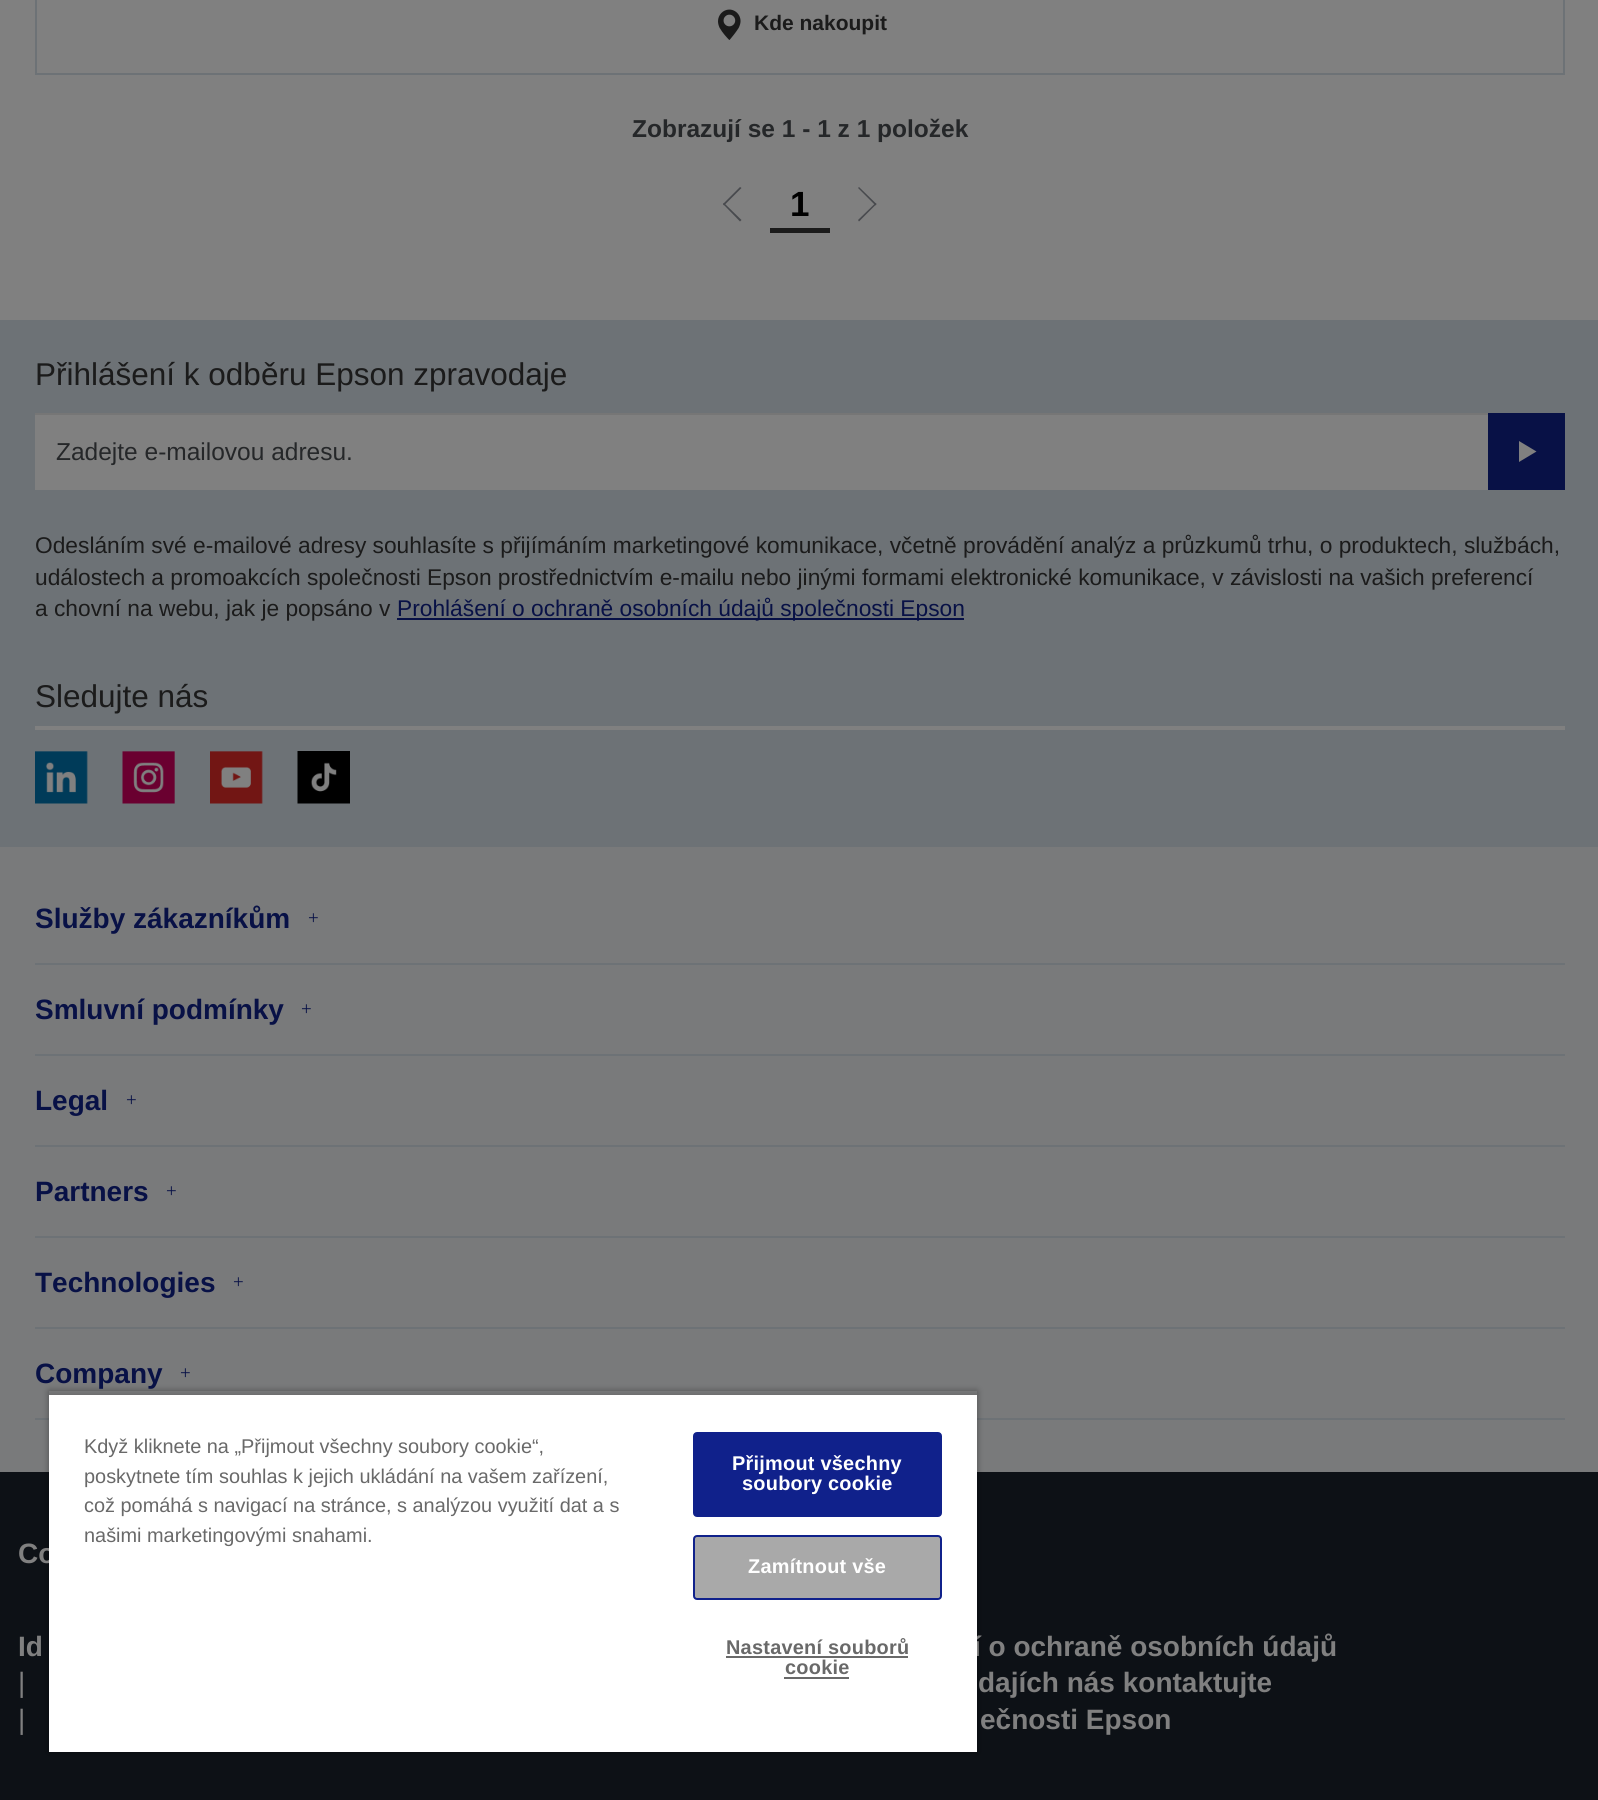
import math
import cairo


def use_color(cr, r, g, b):
  cr.set_source_rgb(r / 255, g / 255, b / 255)

def text(cr, x, y, s, family, size, color, bold=False, italic=False):
  cr.select_font_face(family, cairo.FONT_SLANT_ITALIC if italic else cairo.FONT_SLANT_NORMAL, cairo.FONT_WEIGHT_BOLD if bold else cairo.FONT_WEIGHT_NORMAL)
  cr.set_font_size(size)
  use_color(cr, *color)
  cr.move_to(x, y)
  cr.show_text(s)

def spaced_text(cr, x, y, s, letter, word):
  cr.move_to(x, y)
  for ch in s:
    cr.show_text(ch)
    cr.rel_move_to(letter + word * (ch == ' '), 0)

def box(cr, x, y, w, h, *color):
  use_color(cr, *color)
  cr.rectangle(x, y, w, h)
  cr.fill()

def round_rect(cr, x, y, w, h, r):
  cr.new_sub_path()
  for i, (u, v) in enumerate([(x + w - r, y + h - r), (x + r, y + h - r), (x + r, y + r), (x + w - r, y + r)]):
    cr.arc(u, v, r, i * math.pi / 2, (i + 1) * math.pi / 2)
  cr.close_path()

def shadow(cr, x, y, w, h, r, blur, alpha):
  cr.push_group_with_content(cairo.CONTENT_ALPHA)
  cr.set_operator(cairo.OPERATOR_SOURCE)
  for i in range(15, -16, -2):
    e = blur * i / 6
    if min(w, h) + 2 * e > 0:
      cr.set_source_rgba(0, 0, 0, alpha * math.erfc((i - 1) / 8.5) / 2)
      round_rect(cr, x - e, y - e, w + 2 * e, h + 2 * e, max(0, min(r + e + blur * .6, min(w, h) / 2 + e)))
      cr.fill()
  cr.mask(cr.pop_group())

def picture(cr, path, x, y, w, h):
  cr.save()
  cr.set_source_surface(cairo.ImageSurface.create_from_png(path), x, y)
  cr.rectangle(x, y, w, h)
  cr.fill()
  cr.restore()

def draw(cr):
  use_color(cr, 128, 128, 128)
  cr.paint()
  cr.rectangle(36, -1, 1528, 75)
  use_color(cr, 109, 114, 118)
  cr.stroke()
  picture(cr, "img_01.png", 718, 9, 23, 31)
  use_color(cr, 72, 74, 78)
  cr.new_path()
  cr.move_to(740, 221.5)
  cr.line_to(723, 204)
  cr.line_to(724, 203)
  cr.line_to(741.5, 220)
  cr.close_path()
  cr.fill()
  cr.new_path()
  cr.move_to(724, 205.5)
  cr.line_to(723, 204)
  cr.line_to(740, 187)
  cr.line_to(741.5, 188)
  cr.close_path()
  cr.fill()
  box(cr, 770, 228, 60, 5, 27, 27, 27)
  use_color(cr, 72, 74, 78)
  cr.new_path()
  cr.move_to(859, 187)
  cr.line_to(876.5, 204)
  cr.line_to(875.5, 205.5)
  cr.line_to(858, 188)
  cr.close_path()
  cr.fill()
  cr.new_path()
  cr.move_to(875.5, 203)
  cr.line_to(876.5, 204)
  cr.line_to(859, 221.5)
  cr.line_to(858, 220)
  cr.close_path()
  cr.fill()
  box(cr, 0, 847, 1598, 625, 121, 122, 123)
  box(cr, 0, 320, 1598, 527, 109, 114, 118)
  box(cr, 35, 415, 1453, 75, 128, 128, 128)
  box(cr, 35, 413, 1453, 2, 118, 118, 118)
  box(cr, 1488, 413, 77, 77, 8, 17, 70)
  use_color(cr, 128, 128, 128)
  cr.new_path()
  cr.move_to(1519, 462)
  cr.line_to(1519, 441)
  cr.line_to(1536.5, 451.5)
  cr.close_path()
  cr.fill()
  box(cr, 397, 618, 567, 2, 8, 17, 70)
  box(cr, 35, 726, 1530, 4, 128, 128, 128)
  picture(cr, "img_02.png", 35, 751, 53, 53)
  picture(cr, "img_03.png", 122, 751, 53, 53)
  picture(cr, "img_04.png", 210, 751, 53, 53)
  picture(cr, "img_05.png", 297, 751, 53, 53)
  box(cr, 35, 963, 1530, 2, 109, 114, 118)
  box(cr, 35, 1054, 1530, 2, 109, 114, 118)
  box(cr, 35, 1145, 1530, 2, 109, 114, 118)
  box(cr, 35, 1236, 1530, 2, 109, 114, 118)
  box(cr, 35, 1327, 1530, 2, 109, 114, 118)
  box(cr, 35, 1418, 1530, 2, 109, 114, 118)
  box(cr, 0, 1472, 1598, 328, 13, 17, 22)
  cr.save()
  cr.set_fill_rule(cairo.FILL_RULE_EVEN_ODD)
  cr.new_path()
  cr.move_to(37, 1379)
  cr.line_to(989, 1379)
  cr.line_to(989, 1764)
  cr.line_to(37, 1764)
  cr.close_path()
  cr.move_to(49, 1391)
  cr.line_to(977, 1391)
  cr.line_to(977, 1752)
  cr.line_to(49, 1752)
  cr.close_path()
  cr.clip()
  use_color(cr, 0, 0, 0)
  shadow(cr, 49, 1391, 928, 361, 0, 3.5, 0.35)
  cr.restore()
  cr.save()
  cr.rectangle(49, 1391, 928, 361)
  cr.clip()
  use_color(cr, 0, 0, 0)
  shadow(cr, 49, 1395, 928, 357, 0, 3.5, 0.2)
  cr.restore()
  text(cr, 754, 30, "Kde nakoupit", "Liberation Sans", 21, (27, 27, 27), bold=True)
  text(cr, 632, 137, "Zobrazují se 1 - 1 z 1 položek", "Liberation Sans", 24.5, (37, 39, 41), bold=True)
  text(cr, 790, 216, "1", "Liberation Sans", 35, (0, 0, 0), bold=True)
  text(cr, 35, 385, "Přihlášení k odběru Epson zpravodaje", "Liberation Sans", 31.5, (27, 27, 27))
  text(cr, 56, 460, "Zadejte e-mailovou adresu.", "Liberation Sans", 24.5, (37, 39, 41))
  text(cr, 35, 553, "Odesláním své e-mailové adresy souhlasíte s přijímáním marketingové komunikace, včetně provádění analýz a průzkumů trhu, o produktech, službách,", "Liberation Sans", 22.75, (27, 27, 27))
  text(cr, 35, 585, "událostech a promoakcích společnosti Epson prostřednictvím e-mailu nebo jinými formami elektronické komunikace, v závislosti na vašich preferencí", "Liberation Sans", 22.75, (27, 27, 27))
  text(cr, 35, 616, "a chovní na webu, jak je popsáno v", "Liberation Sans", 22.75, (27, 27, 27))
  text(cr, 397, 616, "Prohlášení o ochraně osobních údajů společnosti Epson", "Liberation Sans", 22.75, (8, 17, 70))
  text(cr, 35, 707, "Sledujte nás", "Liberation Sans", 31.5, (27, 27, 27))
  text(cr, 35, 928, "Služby zákazníkům", "Liberation Sans", 28, (8, 17, 70), bold=True)
  text(cr, 308, 924, "+", "Liberation Serif", 19, (8, 17, 70))
  text(cr, 35, 1019, "Smluvní podmínky", "Liberation Sans", 28, (8, 17, 70), bold=True)
  text(cr, 301, 1015, "+", "Liberation Serif", 19, (8, 17, 70))
  text(cr, 35, 1110, "Legal", "Liberation Sans", 28, (8, 17, 70), bold=True)
  text(cr, 126, 1106, "+", "Liberation Serif", 19, (8, 17, 70))
  text(cr, 35, 1201, "Partners", "Liberation Sans", 28, (8, 17, 70), bold=True)
  text(cr, 166, 1197, "+", "Liberation Serif", 19, (8, 17, 70))
  text(cr, 35, 1292, "Technologies", "Liberation Sans", 28, (8, 17, 70), bold=True)
  text(cr, 233, 1288, "+", "Liberation Serif", 19, (8, 17, 70))
  text(cr, 35, 1383, "Company", "Liberation Sans", 28, (8, 17, 70), bold=True)
  text(cr, 180, 1379, "+", "Liberation Serif", 19, (8, 17, 70))
  text(cr, 18, 1563, "Co", "Liberation Sans", 28, (128, 128, 128), bold=True)
  text(cr, 18, 1656, "Id", "Liberation Sans", 28, (128, 128, 128), bold=True)
  text(cr, 973, 1656, "í o ochraně osobních údajů", "Liberation Sans", 28, (128, 128, 128), bold=True)
  text(cr, 18, 1692, "|", "Liberation Sans", 28, (128, 128, 128))
  text(cr, 978, 1692, "dajích nás kontaktujte", "Liberation Sans", 28, (128, 128, 128), bold=True)
  text(cr, 18, 1729, "|", "Liberation Sans", 28, (128, 128, 128))
  text(cr, 980, 1729, "ečnosti Epson", "Liberation Sans", 28, (128, 128, 128), bold=True)
  box(cr, 49, 1395, 928, 357, 255, 255, 255)
  text(cr, 84, 1453, "Když kliknete na „Přijmout všechny soubory cookie“,", "Liberation Sans", 19.9, (105, 105, 105))
  text(cr, 84, 1483, "poskytnete tím souhlas k jejich ukládání na vašem zařízení,", "Liberation Sans", 19.9, (105, 105, 105))
  text(cr, 84, 1512, "což pomáhá s navigací na stránce, s analýzou využití dat a s", "Liberation Sans", 19.9, (105, 105, 105))
  text(cr, 84, 1542, "našimi marketingovými snahami.", "Liberation Sans", 19.9, (105, 105, 105))
  use_color(cr, 16, 33, 139)
  round_rect(cr, 694, 1433, 247, 83, 3)
  cr.fill_preserve()
  cr.stroke()
  cr.select_font_face("Liberation Sans", cairo.FONT_SLANT_NORMAL, cairo.FONT_WEIGHT_BOLD)
  use_color(cr, 255, 255, 255)
  spaced_text(cr, 732, 1470, "Přijmout všechny", 0.25, 0)
  spaced_text(cr, 742, 1490, "soubory cookie", 0.25, 0)
  use_color(cr, 169, 169, 169)
  round_rect(cr, 694, 1536, 247, 63, 3)
  cr.fill_preserve()
  use_color(cr, 16, 33, 139)
  cr.stroke()
  use_color(cr, 255, 255, 255)
  spaced_text(cr, 748, 1573, "Zamítnout vše", 0.25, 0)
  use_color(cr, 105, 105, 105)
  spaced_text(cr, 726, 1654, "Nastavení souborů", 0.25, 0)
  spaced_text(cr, 785, 1674, "cookie", 0.25, 0)
  box(cr, 726, 1656, 182, 2, 105, 105, 105)
  box(cr, 784, 1677, 65, 2, 105, 105, 105)


surface = cairo.ImageSurface(cairo.FORMAT_RGB24, 1598, 1800)
cr = cairo.Context(surface)
options = cairo.FontOptions()
options.set_hint_metrics(cairo.HINT_METRICS_OFF)
options.set_hint_style(cairo.HINT_STYLE_NONE)
cr.set_font_options(options)
cr.set_miter_limit(4)
draw(cr)
surface.write_to_png("out.png")
